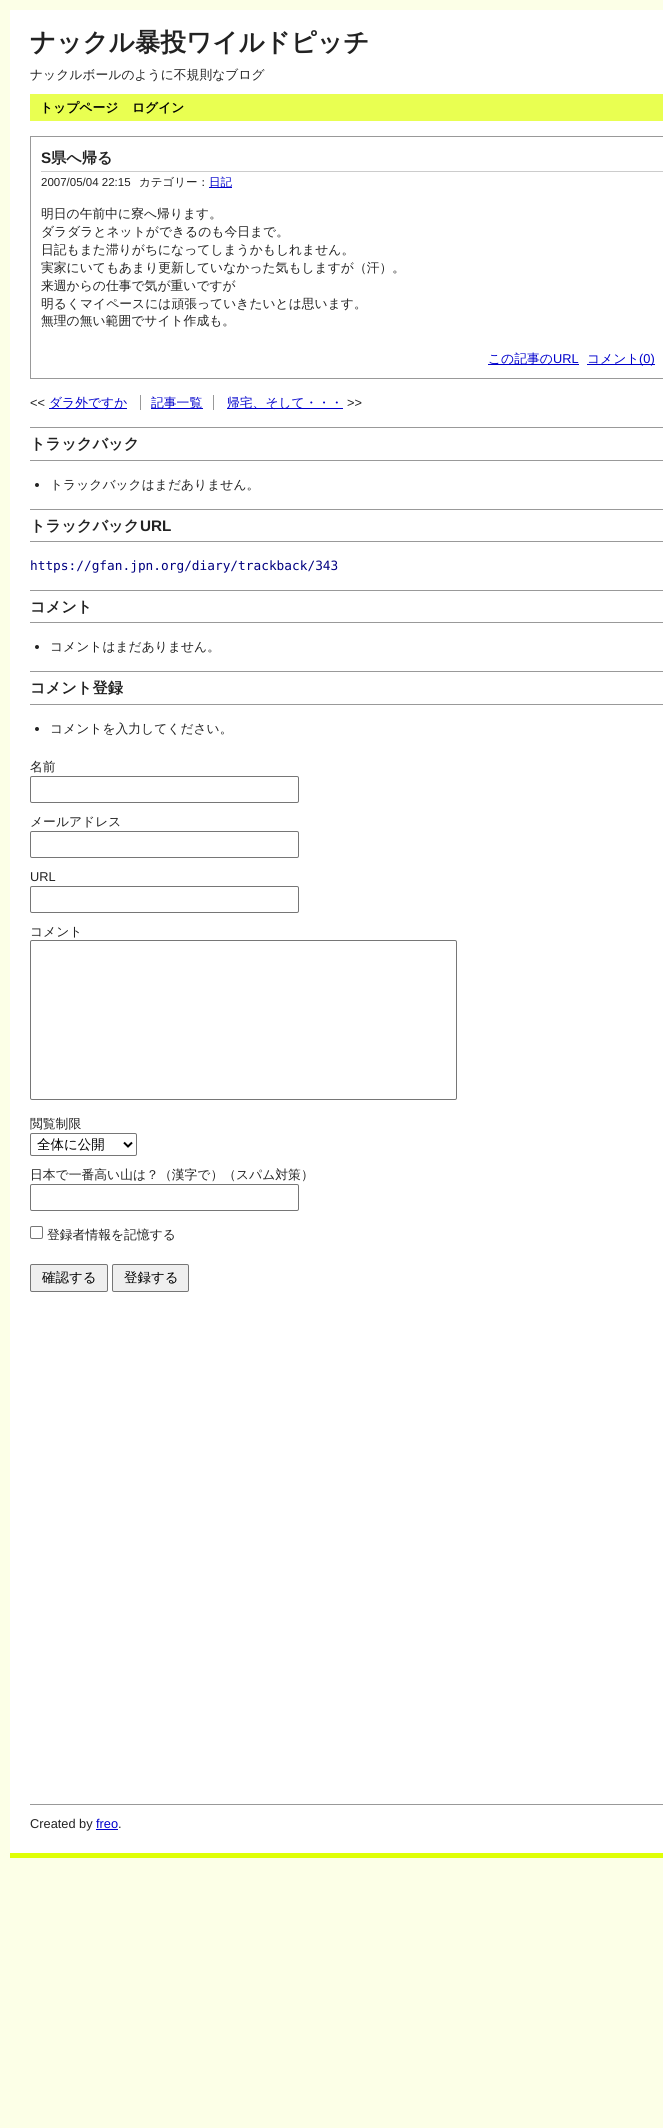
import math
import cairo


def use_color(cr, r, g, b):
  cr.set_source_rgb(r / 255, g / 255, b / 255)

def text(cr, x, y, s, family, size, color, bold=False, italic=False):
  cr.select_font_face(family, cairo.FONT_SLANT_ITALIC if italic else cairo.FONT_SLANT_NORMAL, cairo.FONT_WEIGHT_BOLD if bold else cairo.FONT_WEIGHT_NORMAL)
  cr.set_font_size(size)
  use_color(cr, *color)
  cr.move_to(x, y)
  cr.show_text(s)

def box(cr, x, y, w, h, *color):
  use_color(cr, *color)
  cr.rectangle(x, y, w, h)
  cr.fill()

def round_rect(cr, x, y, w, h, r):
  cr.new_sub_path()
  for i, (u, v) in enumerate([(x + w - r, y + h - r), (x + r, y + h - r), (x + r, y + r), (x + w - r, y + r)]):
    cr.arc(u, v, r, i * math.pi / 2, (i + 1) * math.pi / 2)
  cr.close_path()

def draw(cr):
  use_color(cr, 252, 255, 231)
  cr.paint()
  box(cr, 10, 10, 653, 1843, 255, 255, 255)
  box(cr, 10, 1853, 653, 5, 223, 255, 6)
  box(cr, 30, 94, 633, 27, 233, 255, 81)
  cr.rectangle(30.5, 136.5, 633, 242)
  use_color(cr, 153, 153, 153)
  cr.set_line_width(1)
  cr.stroke()
  box(cr, 41, 171, 622, 1, 204, 204, 204)
  box(cr, 209, 187, 23, 1, 0, 0, 204)
  box(cr, 488, 364, 91, 1, 0, 0, 204)
  box(cr, 587, 364, 68, 1, 0, 0, 204)
  box(cr, 49, 408, 78, 1, 0, 0, 204)
  box(cr, 213, 395, 1, 15, 153, 153, 153)
  box(cr, 140, 395, 1, 15, 153, 153, 153)
  box(cr, 151, 408, 52, 1, 0, 0, 204)
  box(cr, 227, 408, 116, 1, 0, 0, 204)
  box(cr, 30, 427, 633, 1, 153, 153, 153)
  box(cr, 30, 460, 633, 1, 153, 153, 153)
  use_color(cr, 34, 34, 34)
  cr.arc(37, 485, 2, 0, 2 * math.pi)
  cr.fill()
  box(cr, 30, 509, 633, 1, 153, 153, 153)
  box(cr, 30, 541, 633, 1, 153, 153, 153)
  box(cr, 30, 590, 633, 1, 153, 153, 153)
  box(cr, 30, 622, 633, 1, 153, 153, 153)
  use_color(cr, 34, 34, 34)
  cr.arc(37, 647, 2, 0, 2 * math.pi)
  cr.fill()
  box(cr, 30, 671, 633, 1, 153, 153, 153)
  box(cr, 30, 704, 633, 1, 153, 153, 153)
  use_color(cr, 34, 34, 34)
  cr.arc(37, 729, 2, 0, 2 * math.pi)
  cr.fill()
  round_rect(cr, 30.5, 776.5, 268, 26, 1.5)
  use_color(cr, 118, 118, 118)
  cr.stroke()
  round_rect(cr, 30.5, 831.5, 268, 26, 1.5)
  cr.stroke()
  round_rect(cr, 30.5, 886.5, 268, 26, 1.5)
  cr.stroke()
  round_rect(cr, 30.5, 940.5, 426, 159, 1.5)
  cr.stroke()
  round_rect(cr, 30.5, 1133.5, 106, 22, 1.5)
  cr.stroke()
  cr.new_path()
  cr.move_to(124, 1142.5)
  cr.line_to(128, 1146.5)
  cr.line_to(132, 1142.5)
  use_color(cr, 0, 0, 0)
  cr.set_line_width(2)
  cr.stroke()
  round_rect(cr, 30.5, 1184.5, 268, 26, 1.5)
  use_color(cr, 118, 118, 118)
  cr.set_line_width(1)
  cr.stroke()
  round_rect(cr, 30.5, 1226.5, 12, 12, 1.5)
  cr.stroke()
  use_color(cr, 239, 239, 239)
  round_rect(cr, 30.5, 1264.5, 77, 27, 1.5)
  cr.fill_preserve()
  use_color(cr, 118, 118, 118)
  cr.stroke()
  use_color(cr, 239, 239, 239)
  round_rect(cr, 112.5, 1264.5, 76, 27, 1.5)
  cr.fill_preserve()
  use_color(cr, 118, 118, 118)
  cr.stroke()
  box(cr, 30, 1804, 633, 1, 153, 153, 153)
  box(cr, 96, 1829, 22, 1, 0, 0, 204)
  text(cr, 30, 51, "ナックル暴投ワイルドピッチ", "WenQuanYi Zen Hei", 25.6, (34, 34, 34), bold=True)
  text(cr, 30, 79, "ナックルボールのように不規則なブログ", "WenQuanYi Zen Hei Medium", 12.8, (34, 34, 34))
  text(cr, 40, 112, "トップページ", "WenQuanYi Zen Hei", 12.8, (0, 0, 0), bold=True)
  text(cr, 132, 112, "ログイン", "WenQuanYi Zen Hei", 12.8, (0, 0, 0), bold=True)
  text(cr, 41, 163, "S", "Liberation Sans", 15.25, (34, 34, 34), bold=True)
  text(cr, 51, 163, "県へ帰る", "WenQuanYi Zen Hei", 15.25, (34, 34, 34), bold=True)
  text(cr, 41, 186, "2007/05/04 22:15", "Liberation Sans", 11.5, (34, 34, 34))
  text(cr, 139, 186, "カテゴリー：", "WenQuanYi Zen Hei Medium", 11.5, (34, 34, 34))
  text(cr, 209, 186, "日記", "WenQuanYi Zen Hei Medium", 11.5, (0, 0, 204))
  text(cr, 41, 218, "明日の午前中に寮へ帰ります。", "WenQuanYi Zen Hei Medium", 12.8, (34, 34, 34))
  text(cr, 41, 236, "ダラダラとネットができるのも今日まで。", "WenQuanYi Zen Hei Medium", 12.8, (34, 34, 34))
  text(cr, 41, 254, "日記もまた滞りがちになってしまうかもしれません。", "WenQuanYi Zen Hei Medium", 12.8, (34, 34, 34))
  text(cr, 41, 272, "実家にいてもあまり更新していなかった気もしますが（汗）。", "WenQuanYi Zen Hei Medium", 12.8, (34, 34, 34))
  text(cr, 41, 290, "来週からの仕事で気が重いですが", "WenQuanYi Zen Hei Medium", 12.8, (34, 34, 34))
  text(cr, 41, 308, "明るくマイペースには頑張っていきたいとは思います。", "WenQuanYi Zen Hei Medium", 12.8, (34, 34, 34))
  text(cr, 41, 325, "無理の無い範囲でサイト作成も。", "WenQuanYi Zen Hei Medium", 12.8, (34, 34, 34))
  text(cr, 488, 363, "この記事の", "WenQuanYi Zen Hei Medium", 12.8, (0, 0, 204))
  text(cr, 553, 363, "URL", "Liberation Sans", 12.8, (0, 0, 204))
  text(cr, 587, 363, "コメント", "WenQuanYi Zen Hei Medium", 12.8, (0, 0, 204))
  text(cr, 639, 363, "(0)", "Liberation Sans", 12.8, (0, 0, 204))
  text(cr, 30, 407, "<<", "Liberation Sans", 12.8, (34, 34, 34))
  text(cr, 49, 407, "ダラ外ですか", "WenQuanYi Zen Hei Medium", 12.8, (0, 0, 204))
  text(cr, 151, 407, "記事一覧", "WenQuanYi Zen Hei Medium", 12.8, (0, 0, 204))
  text(cr, 227, 407, "帰宅、そして・・・", "WenQuanYi Zen Hei Medium", 12.8, (0, 0, 204))
  text(cr, 347, 407, ">>", "Liberation Sans", 12.8, (34, 34, 34))
  text(cr, 30, 449, "トラックバック", "WenQuanYi Zen Hei", 15.25, (34, 34, 34), bold=True)
  text(cr, 50, 489, "トラックバックはまだありません。", "WenQuanYi Zen Hei Medium", 12.8, (34, 34, 34))
  text(cr, 30, 531, "トラックバック", "WenQuanYi Zen Hei", 15.25, (34, 34, 34), bold=True)
  text(cr, 140, 531, "URL", "Liberation Sans", 15.25, (34, 34, 34), bold=True)
  text(cr, 30, 570, "https://gfan.jpn.org/diary/trackback/343", "DejaVu Sans Mono", 12.8, (0, 0, 128))
  text(cr, 30, 612, "コメント", "WenQuanYi Zen Hei", 15.25, (34, 34, 34), bold=True)
  text(cr, 50, 651, "コメントはまだありません。", "WenQuanYi Zen Hei Medium", 12.8, (34, 34, 34))
  text(cr, 30, 693, "コメント登録", "WenQuanYi Zen Hei", 15.25, (34, 34, 34), bold=True)
  text(cr, 50, 733, "コメントを入力してください。", "WenQuanYi Zen Hei Medium", 12.8, (34, 34, 34))
  text(cr, 30, 771, "名前", "WenQuanYi Zen Hei Medium", 12.8, (34, 34, 34))
  text(cr, 30, 826, "メールアドレス", "WenQuanYi Zen Hei Medium", 12.8, (34, 34, 34))
  text(cr, 30, 881, "URL", "Liberation Sans", 12.8, (34, 34, 34))
  text(cr, 30, 936, "コメント", "WenQuanYi Zen Hei Medium", 12.8, (34, 34, 34))
  text(cr, 30, 1128, "閲覧制限", "WenQuanYi Zen Hei Medium", 12.8, (34, 34, 34))
  text(cr, 37, 1149, "全体に公開", "WenQuanYi Zen Hei Medium", 13.5, (0, 0, 0))
  text(cr, 30, 1179, "日本で一番高い山は？（漢字で）（スパム対策）", "WenQuanYi Zen Hei Medium", 12.8, (34, 34, 34))
  text(cr, 47, 1239, "登録者情報を記憶する", "WenQuanYi Zen Hei Medium", 12.8, (34, 34, 34))
  text(cr, 42, 1282, "確認する", "WenQuanYi Zen Hei Medium", 13.5, (0, 0, 0))
  text(cr, 124, 1282, "登録する", "WenQuanYi Zen Hei Medium", 13.5, (0, 0, 0))
  text(cr, 30, 1828, "Created by", "Liberation Sans", 12.8, (34, 34, 34))
  text(cr, 96, 1828, "freo", "Liberation Sans", 12.8, (0, 0, 204))
  text(cr, 118, 1828, ".", "Liberation Sans", 12.8, (34, 34, 34))


surface = cairo.ImageSurface(cairo.FORMAT_RGB24, 663, 2128)
cr = cairo.Context(surface)
options = cairo.FontOptions()
options.set_hint_metrics(cairo.HINT_METRICS_OFF)
options.set_hint_style(cairo.HINT_STYLE_NONE)
cr.set_font_options(options)
cr.set_miter_limit(4)
draw(cr)
surface.write_to_png("out.png")
